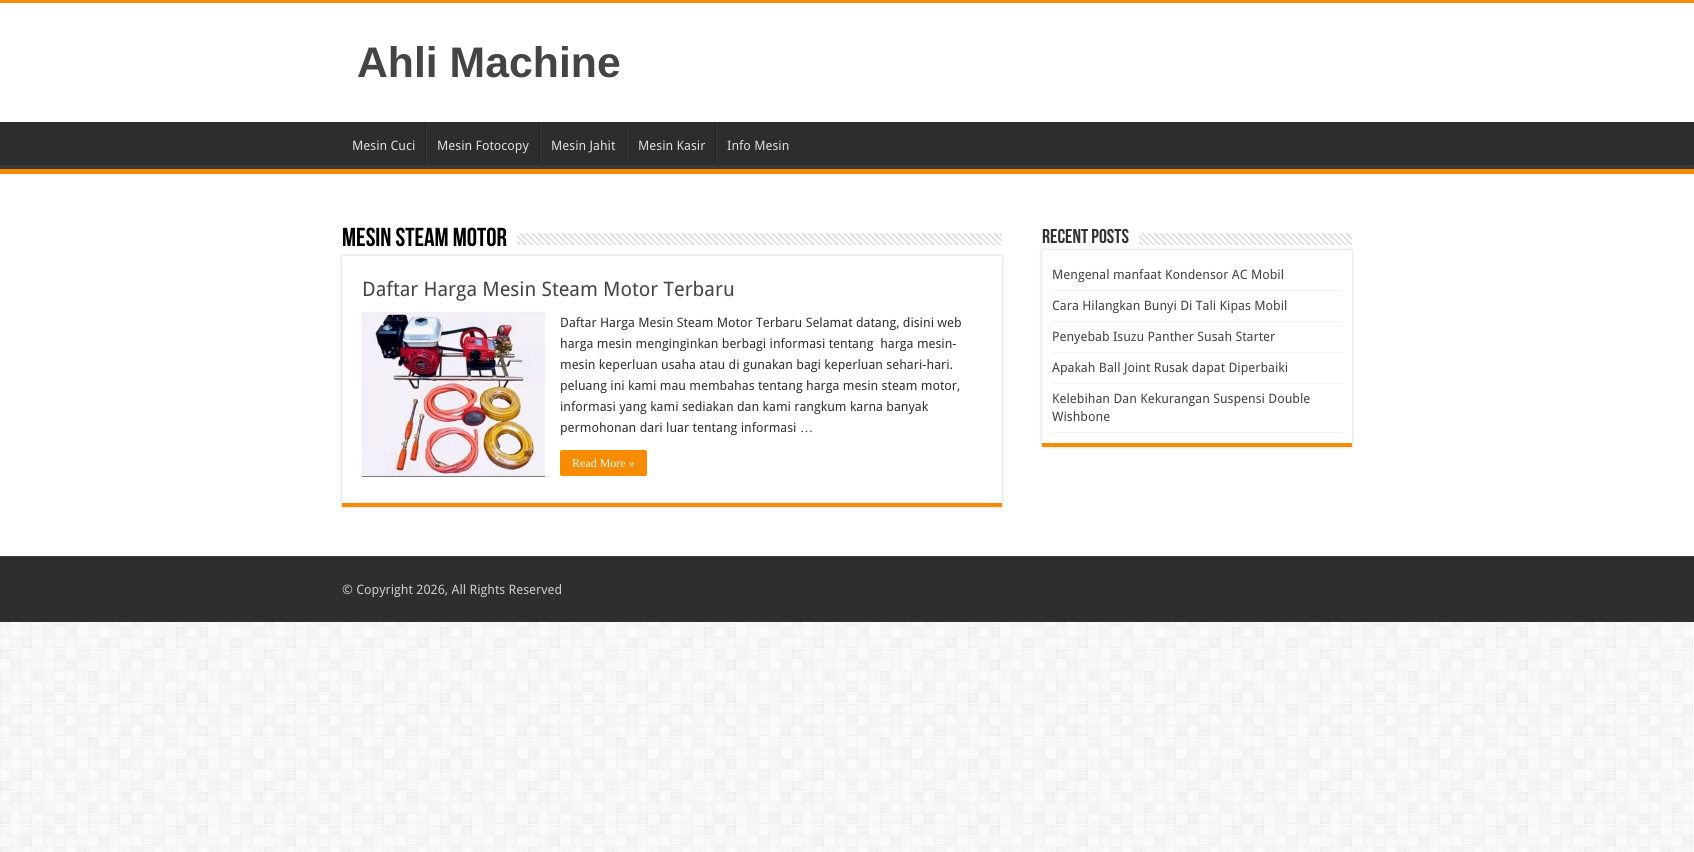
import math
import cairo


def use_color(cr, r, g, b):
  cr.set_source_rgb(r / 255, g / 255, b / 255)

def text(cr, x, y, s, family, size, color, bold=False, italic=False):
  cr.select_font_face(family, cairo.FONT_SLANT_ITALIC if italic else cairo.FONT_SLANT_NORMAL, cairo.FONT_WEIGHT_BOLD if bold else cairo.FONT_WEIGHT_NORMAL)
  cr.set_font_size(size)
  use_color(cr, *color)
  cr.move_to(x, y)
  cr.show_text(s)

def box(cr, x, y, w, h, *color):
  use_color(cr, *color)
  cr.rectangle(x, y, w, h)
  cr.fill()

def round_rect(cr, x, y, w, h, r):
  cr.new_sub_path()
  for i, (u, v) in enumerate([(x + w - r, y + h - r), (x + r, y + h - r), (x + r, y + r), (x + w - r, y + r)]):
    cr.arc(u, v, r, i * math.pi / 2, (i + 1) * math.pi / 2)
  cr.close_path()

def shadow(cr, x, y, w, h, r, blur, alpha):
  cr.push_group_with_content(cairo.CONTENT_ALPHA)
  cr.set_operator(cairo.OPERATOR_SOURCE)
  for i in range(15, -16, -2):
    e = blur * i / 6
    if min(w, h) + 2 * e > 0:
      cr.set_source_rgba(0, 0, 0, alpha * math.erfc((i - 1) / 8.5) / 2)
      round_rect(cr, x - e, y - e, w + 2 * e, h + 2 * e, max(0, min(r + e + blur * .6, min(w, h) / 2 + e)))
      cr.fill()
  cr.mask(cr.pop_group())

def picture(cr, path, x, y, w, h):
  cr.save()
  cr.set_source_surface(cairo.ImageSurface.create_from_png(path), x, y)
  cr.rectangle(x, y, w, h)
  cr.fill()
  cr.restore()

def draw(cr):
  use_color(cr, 255, 255, 255)
  cr.paint()
  picture(cr, "img_01.png", 0, 622, 1693, 230)
  box(cr, 0, 0, 1694, 3, 248, 140, 0)
  box(cr, 0, 122, 1694, 43, 45, 45, 45)
  cr.save()
  cr.rectangle(0, 122, 1694, 47)
  cr.clip()
  use_color(cr, 57, 57, 57)
  cr.set_fill_rule(cairo.FILL_RULE_EVEN_ODD)
  cr.new_path()
  cr.move_to(-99, 23)
  cr.line_to(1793, 23)
  cr.line_to(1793, 268)
  cr.line_to(-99, 268)
  cr.close_path()
  cr.move_to(-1, 116)
  cr.line_to(1693, 116)
  cr.curve_to(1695, 117, 1694, 131, 1694, 133)
  cr.line_to(1694, 164)
  cr.line_to(1693, 165)
  cr.line_to(-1, 165)
  cr.line_to(-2, 164)
  cr.line_to(-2, 116)
  cr.close_path()
  cr.fill()
  cr.restore()
  box(cr, 0, 169, 1694, 5, 248, 140, 0)
  box(cr, 425, 122, 1, 42, 34, 34, 34)
  box(cr, 426, 122, 1, 42, 56, 56, 56)
  box(cr, 539, 122, 1, 42, 34, 34, 34)
  box(cr, 540, 122, 1, 42, 56, 56, 56)
  box(cr, 626, 122, 1, 42, 34, 34, 34)
  box(cr, 627, 122, 1, 42, 56, 56, 56)
  box(cr, 715, 122, 1, 42, 34, 34, 34)
  box(cr, 716, 122, 1, 42, 56, 56, 56)
  picture(cr, "img_02.png", 517, 233, 485, 12)
  cr.save()
  cr.set_fill_rule(cairo.FILL_RULE_EVEN_ODD)
  cr.new_path()
  cr.move_to(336, 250)
  cr.line_to(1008, 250)
  cr.line_to(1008, 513)
  cr.line_to(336, 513)
  cr.close_path()
  cr.move_to(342, 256)
  cr.line_to(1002, 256)
  cr.line_to(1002, 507)
  cr.line_to(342, 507)
  cr.close_path()
  cr.clip()
  use_color(cr, 202, 202, 202)
  shadow(cr, 342, 256, 660, 251, 0, 1.5, 1)
  cr.restore()
  box(cr, 342, 503, 660, 4, 248, 140, 0)
  box(cr, 342, 502, 660, 1, 242, 242, 242)
  picture(cr, "img_03.png", 362, 312, 183, 165)
  use_color(cr, 248, 140, 0)
  round_rect(cr, 560, 450, 87, 26, 2)
  cr.fill()
  cr.save()
  cr.set_fill_rule(cairo.FILL_RULE_EVEN_ODD)
  cr.new_path()
  cr.move_to(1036, 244)
  cr.line_to(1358, 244)
  cr.line_to(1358, 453)
  cr.line_to(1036, 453)
  cr.close_path()
  cr.move_to(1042, 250)
  cr.line_to(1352, 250)
  cr.line_to(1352, 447)
  cr.line_to(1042, 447)
  cr.close_path()
  cr.clip()
  use_color(cr, 202, 202, 202)
  shadow(cr, 1042, 250, 310, 197, 0, 1.5, 1)
  cr.restore()
  picture(cr, "img_04.png", 1139, 233, 213, 12)
  box(cr, 1042, 443, 310, 4, 248, 140, 0)
  box(cr, 1052, 290, 290, 1, 242, 242, 242)
  box(cr, 1052, 321, 290, 1, 242, 242, 242)
  box(cr, 1052, 352, 290, 1, 242, 242, 242)
  box(cr, 1052, 383, 290, 1, 242, 242, 242)
  box(cr, 1052, 432, 290, 1, 242, 242, 242)
  box(cr, 0, 557, 1694, 65, 46, 46, 46)
  box(cr, 0, 556, 1694, 1, 68, 68, 68)
  text(cr, 357, 77, "Ahli Machine", "Liberation Sans", 42.75, (68, 68, 68), bold=True)
  text(cr, 352, 150, "Mesin Cuci", "Droid Sans", 13, (221, 221, 221))
  text(cr, 437, 150, "Mesin Fotocopy", "Droid Sans", 13, (221, 221, 221))
  text(cr, 551, 150, "Mesin Jahit", "Droid Sans", 13, (221, 221, 221))
  text(cr, 638, 150, "Mesin Kasir", "Droid Sans", 13, (221, 221, 221))
  text(cr, 727, 150, "Info Mesin", "Droid Sans", 13, (221, 221, 221))
  text(cr, 342, 246, "Mesin Steam Motor", "Bebas Neue", 26, (0, 0, 0), bold=True)
  text(cr, 362, 296, "Daftar Harga Mesin Steam Motor Terbaru", "Droid Sans", 20, (68, 68, 68))
  text(cr, 560, 327, "Daftar Harga Mesin Steam Motor Terbaru Selamat datang, disini web", "Droid Sans", 13, (51, 51, 51))
  text(cr, 560, 348, "harga mesin menginginkan berbagi informasi tentang  harga mesin-", "Droid Sans", 13, (51, 51, 51))
  text(cr, 560, 369, "mesin keperluan usaha atau di gunakan bagi keperluan sehari-hari.", "Droid Sans", 13, (51, 51, 51))
  text(cr, 560, 390, "peluang ini kami mau membahas tentang harga mesin steam motor,", "Droid Sans", 13, (51, 51, 51))
  text(cr, 560, 411, "informasi yang kami sediakan dan kami rangkum karna banyak", "Droid Sans", 13, (51, 51, 51))
  text(cr, 560, 432, "permohonan dari luar tentang informasi", "Droid Sans", 13, (51, 51, 51))
  text(cr, 800, 432, "…", "Liberation Serif", 13, (51, 51, 51))
  text(cr, 572, 467, "Read More »", "Liberation Serif", 12, (255, 255, 255))
  text(cr, 1042, 243, "Recent Posts", "Bebas Neue", 20, (51, 51, 51), bold=True)
  text(cr, 1052, 279, "Mengenal manfaat Kondensor AC Mobil", "Droid Sans", 13, (68, 68, 68))
  text(cr, 1052, 310, "Cara Hilangkan Bunyi Di Tali Kipas Mobil", "Droid Sans", 13, (68, 68, 68))
  text(cr, 1052, 341, "Penyebab Isuzu Panther Susah Starter", "Droid Sans", 13, (68, 68, 68))
  text(cr, 1052, 372, "Apakah Ball Joint Rusak dapat Diperbaiki", "Droid Sans", 13, (68, 68, 68))
  text(cr, 1052, 403, "Kelebihan Dan Kekurangan Suspensi Double", "Droid Sans", 13, (68, 68, 68))
  text(cr, 1052, 421, "Wishbone", "Droid Sans", 13, (68, 68, 68))
  text(cr, 342, 594, "© Copyright 2026, All Rights Reserved", "Droid Sans", 13, (204, 204, 204))


surface = cairo.ImageSurface(cairo.FORMAT_RGB24, 1694, 852)
cr = cairo.Context(surface)
options = cairo.FontOptions()
options.set_hint_metrics(cairo.HINT_METRICS_OFF)
options.set_hint_style(cairo.HINT_STYLE_NONE)
cr.set_font_options(options)
cr.set_miter_limit(4)
draw(cr)
surface.write_to_png("out.png")
